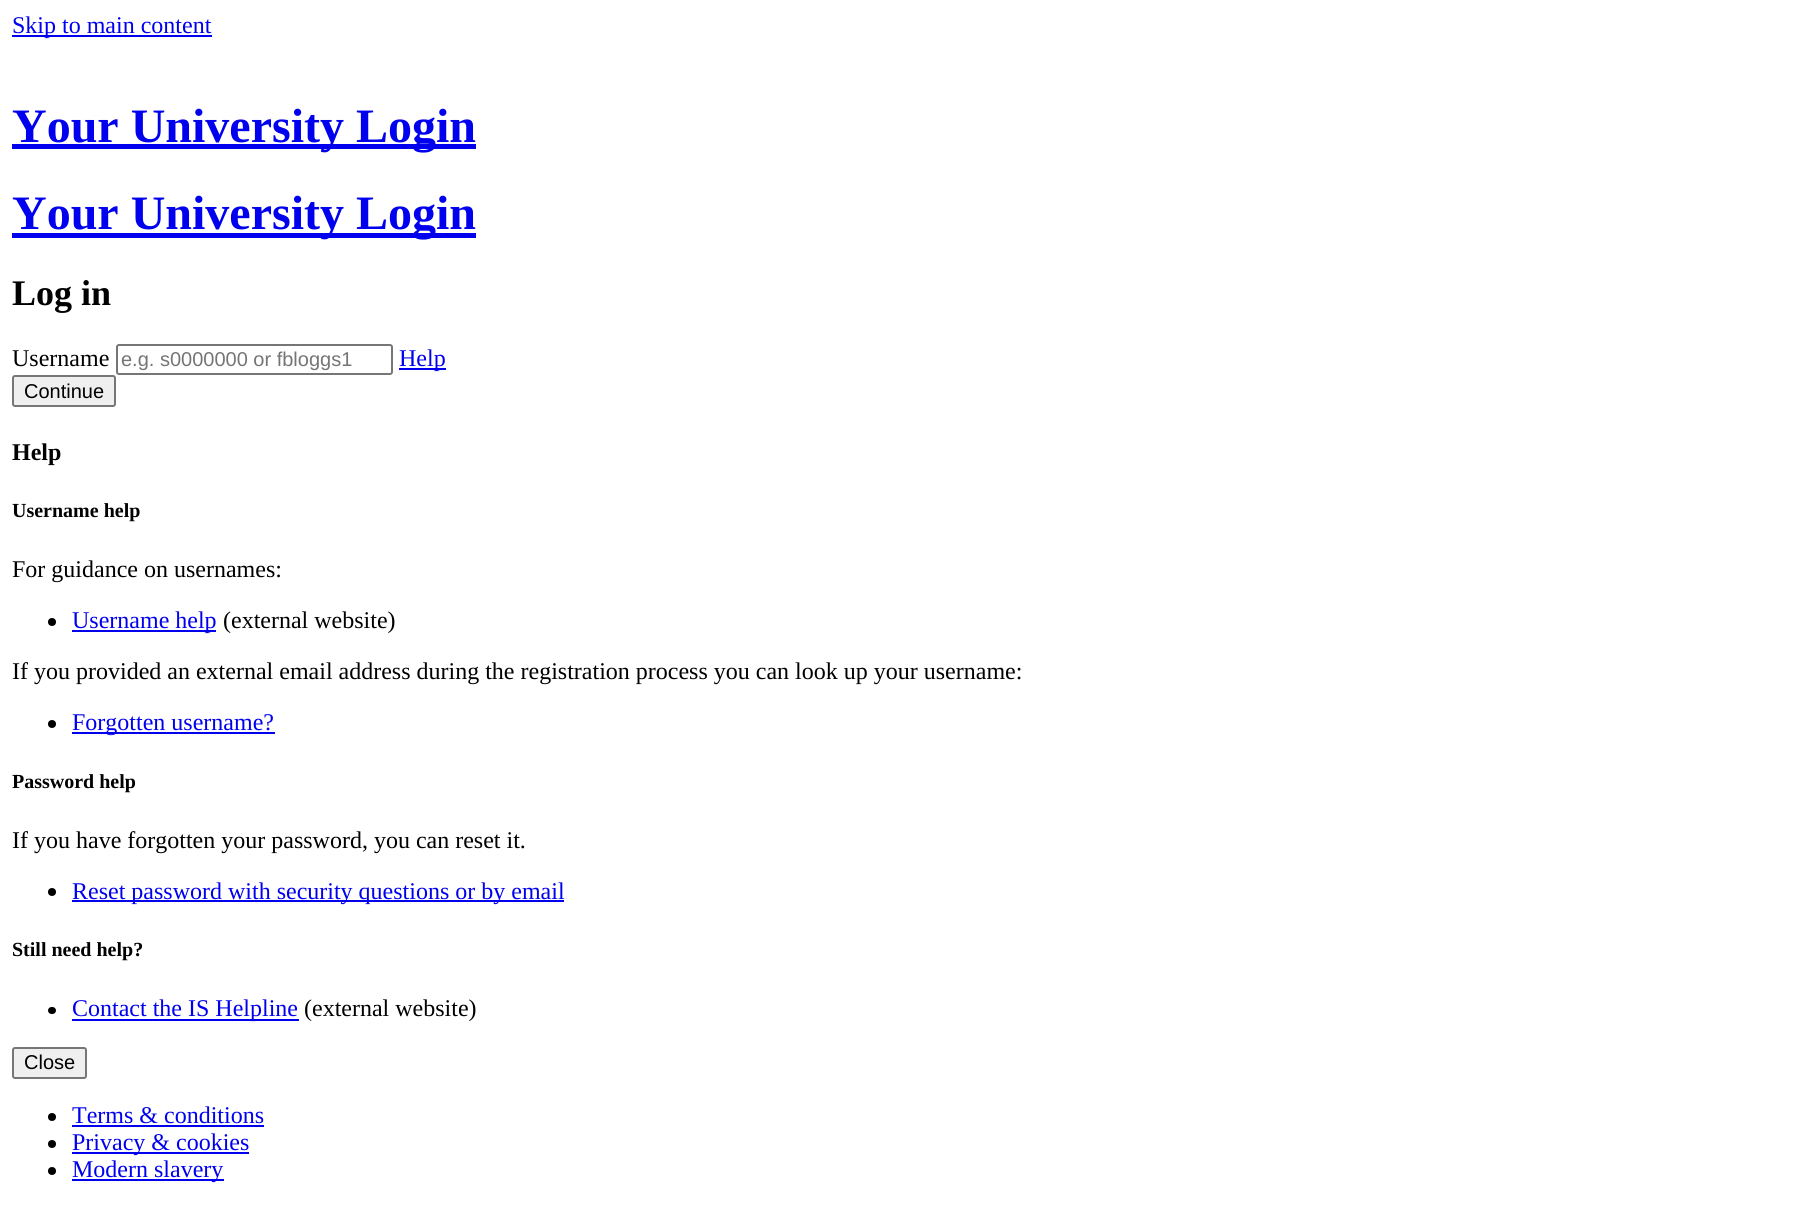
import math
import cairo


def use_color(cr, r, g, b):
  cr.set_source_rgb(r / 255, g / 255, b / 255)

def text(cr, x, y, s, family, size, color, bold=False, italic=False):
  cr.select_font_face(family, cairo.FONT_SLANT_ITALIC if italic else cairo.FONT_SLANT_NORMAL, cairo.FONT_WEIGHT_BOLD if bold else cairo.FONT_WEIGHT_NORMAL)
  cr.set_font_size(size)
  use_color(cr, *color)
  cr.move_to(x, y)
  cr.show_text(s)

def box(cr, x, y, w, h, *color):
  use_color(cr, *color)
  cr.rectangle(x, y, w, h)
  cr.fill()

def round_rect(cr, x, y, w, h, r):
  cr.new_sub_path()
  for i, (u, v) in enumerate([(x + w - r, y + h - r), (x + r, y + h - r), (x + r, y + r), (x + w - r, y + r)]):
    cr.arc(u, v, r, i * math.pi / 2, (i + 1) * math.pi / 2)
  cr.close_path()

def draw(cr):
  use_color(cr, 255, 255, 255)
  cr.paint()
  box(cr, 12, 35, 200, 2, 0, 0, 238)
  box(cr, 12, 144, 464, 5, 0, 0, 238)
  box(cr, 12, 233, 464, 5, 0, 0, 238)
  round_rect(cr, 117, 345, 275, 29, 2)
  use_color(cr, 118, 118, 118)
  cr.stroke()
  box(cr, 399, 368, 47, 2, 0, 0, 238)
  use_color(cr, 239, 239, 239)
  round_rect(cr, 13, 376, 102, 30, 2)
  cr.fill_preserve()
  use_color(cr, 118, 118, 118)
  cr.stroke()
  use_color(cr, 0, 0, 0)
  cr.arc(52, 622, 4, 0, 2 * math.pi)
  cr.fill()
  box(cr, 72, 630, 144, 2, 0, 0, 238)
  use_color(cr, 0, 0, 0)
  cr.arc(52, 724, 4, 0, 2 * math.pi)
  cr.fill()
  box(cr, 72, 732, 203, 2, 0, 0, 238)
  use_color(cr, 0, 0, 0)
  cr.arc(52, 892, 4, 0, 2 * math.pi)
  cr.fill()
  box(cr, 72, 900, 492, 2, 0, 0, 238)
  use_color(cr, 0, 0, 0)
  round_rect(cr, 48, 1007, 8, 7, 3.5)
  cr.fill()
  box(cr, 72, 1019, 227, 2, 0, 0, 238)
  use_color(cr, 239, 239, 239)
  round_rect(cr, 13, 1048, 73, 30, 2)
  cr.fill_preserve()
  use_color(cr, 118, 118, 118)
  cr.stroke()
  use_color(cr, 0, 0, 0)
  cr.arc(52, 1117, 4, 0, 2 * math.pi)
  cr.fill()
  box(cr, 72, 1125, 192, 2, 0, 0, 238)
  use_color(cr, 0, 0, 0)
  cr.arc(52, 1144, 4, 0, 2 * math.pi)
  cr.fill()
  box(cr, 72, 1152, 177, 2, 0, 0, 238)
  use_color(cr, 0, 0, 0)
  cr.arc(52, 1171, 4, 0, 2 * math.pi)
  cr.fill()
  box(cr, 72, 1179, 152, 2, 0, 0, 238)
  text(cr, 12, 33, "Skip to main content", "Liberation Serif", 24, (0, 0, 238))
  text(cr, 12, 142, "Your University Login", "Liberation Serif", 48, (0, 0, 238), bold=True)
  text(cr, 12, 229, "Your University Login", "Liberation Serif", 48, (0, 0, 238), bold=True)
  text(cr, 12, 305, "Log in", "Liberation Serif", 36, (0, 0, 0), bold=True)
  text(cr, 12, 366, "Username", "Liberation Serif", 24, (0, 0, 0))
  text(cr, 121, 366, "e.g. s0000000 or fbloggs1", "Liberation Sans", 20, (117, 117, 117))
  text(cr, 399, 366, "Help", "Liberation Serif", 24, (0, 0, 238))
  text(cr, 24, 398, "Continue", "Liberation Sans", 20, (0, 0, 0))
  text(cr, 12, 460, "Help", "Liberation Serif", 24, (0, 0, 0), bold=True)
  text(cr, 12, 517, "Username help", "Liberation Serif", 20, (0, 0, 0), bold=True)
  text(cr, 12, 577, "For guidance on usernames:", "Liberation Serif", 24, (0, 0, 0))
  text(cr, 72, 628, "Username help", "Liberation Serif", 24, (0, 0, 238))
  text(cr, 223, 628, "(external website)", "Liberation Serif", 24, (0, 0, 0))
  text(cr, 12, 679, "If you provided an external email address during the registration process you can look up your username:", "Liberation Serif", 24, (0, 0, 0))
  text(cr, 72, 730, "Forgotten username?", "Liberation Serif", 24, (0, 0, 238))
  text(cr, 12, 788, "Password help", "Liberation Serif", 20, (0, 0, 0), bold=True)
  text(cr, 12, 848, "If you have forgotten your password, you can reset it.", "Liberation Serif", 24, (0, 0, 0))
  text(cr, 72, 899, "Reset password with security questions or by email", "Liberation Serif", 24, (0, 0, 238))
  text(cr, 12, 956, "Still need help?", "Liberation Serif", 20, (0, 0, 0), bold=True)
  text(cr, 72, 1016, "Contact the IS Helpline", "Liberation Serif", 24, (0, 0, 238))
  text(cr, 304, 1016, "(external website)", "Liberation Serif", 24, (0, 0, 0))
  text(cr, 24, 1069, "Close", "Liberation Sans", 20, (0, 0, 0))
  text(cr, 72, 1123, "Terms & conditions", "Liberation Serif", 24, (0, 0, 238))
  text(cr, 72, 1150, "Privacy & cookies", "Liberation Serif", 24, (0, 0, 238))
  text(cr, 72, 1177, "Modern slavery", "Liberation Serif", 24, (0, 0, 238))


surface = cairo.ImageSurface(cairo.FORMAT_RGB24, 1809, 1210)
cr = cairo.Context(surface)
options = cairo.FontOptions()
options.set_hint_metrics(cairo.HINT_METRICS_OFF)
options.set_hint_style(cairo.HINT_STYLE_NONE)
cr.set_font_options(options)
cr.set_miter_limit(4)
draw(cr)
surface.write_to_png("out.png")
